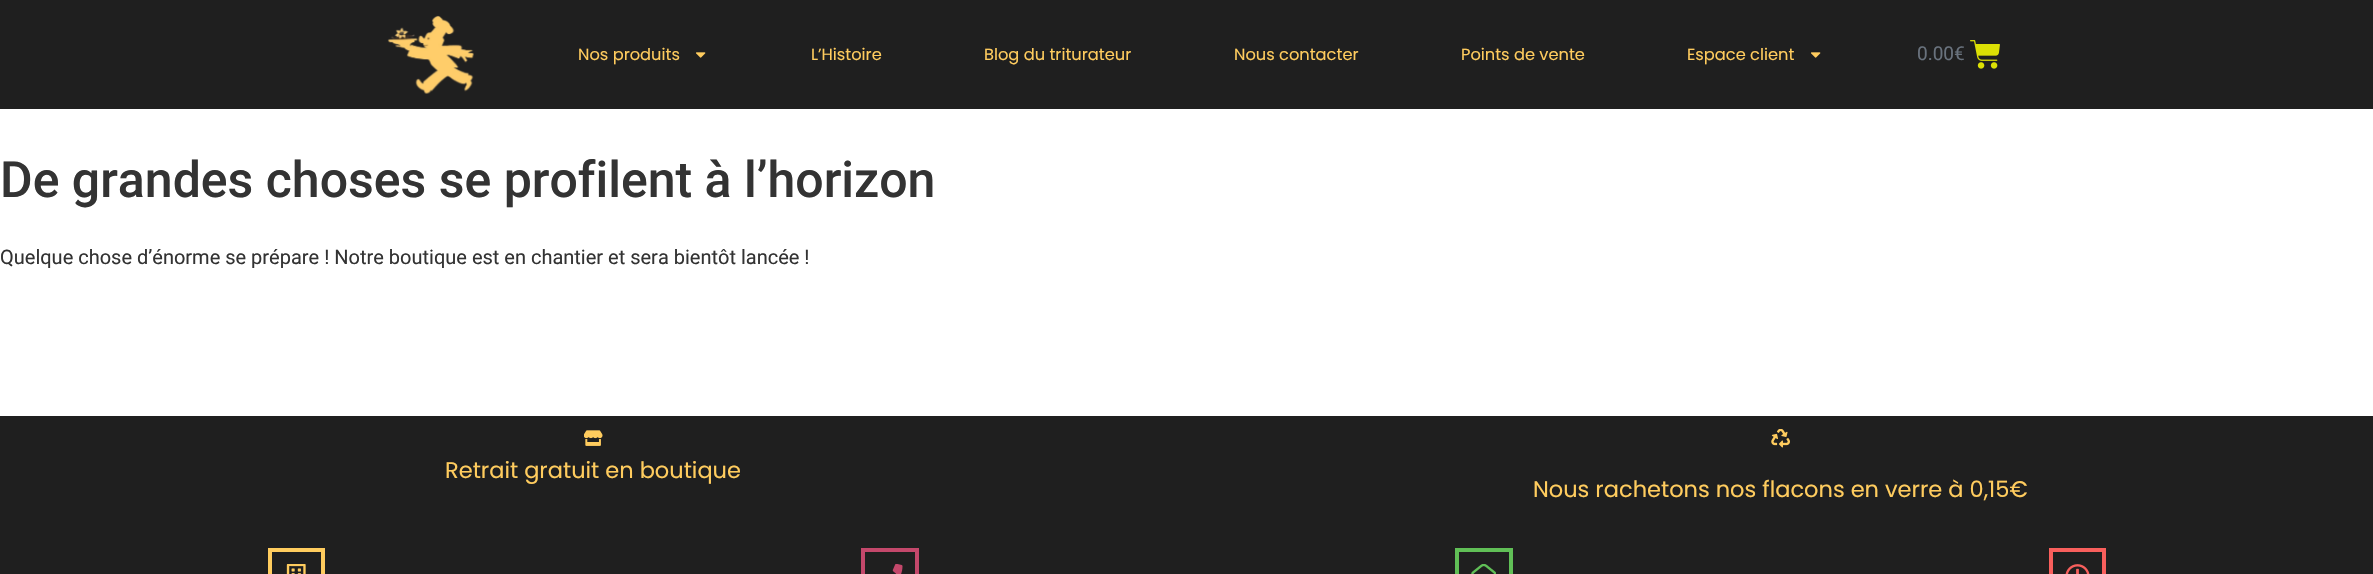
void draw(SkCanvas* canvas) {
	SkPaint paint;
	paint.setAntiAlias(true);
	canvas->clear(0xffffffff);
	paint.setColor(0xff1f1f1f);
	canvas->drawRect(SkRect::MakeXYWH(0, 0, 2373, 109), paint);
	canvas->drawImageRect(SkImages::DeferredFromEncodedData(SkData::MakeFromFileName("img1.png")), SkRect::MakeXYWH(387, 15, 87, 79), SkSamplingOptions());
	SkFont f1(fontMgr->matchFamilyStyle("Poppins", SkFontStyle::Normal()), 16.25);
	f1.setSubpixel(true);
	paint.setColor(0xffffcc5e);
	canvas->drawString("Nos produits", 578, 60, f1, paint);
	canvas->drawImageRect(SkImages::DeferredFromEncodedData(SkData::MakeFromFileName("img2.png")), SkRect::MakeXYWH(696, 52, 10, 6), SkSamplingOptions());
	canvas->drawString("L’Histoire", 811, 60, f1, paint);
	canvas->drawString("Blog du triturateur", 984, 60, f1, paint);
	canvas->drawString("Nous contacter", 1234, 60, f1, paint);
	canvas->drawString("Points de vente", 1461, 60, f1, paint);
	canvas->drawString("Espace client", 1687, 60, f1, paint);
	canvas->drawImageRect(SkImages::DeferredFromEncodedData(SkData::MakeFromFileName("img2.png")), SkRect::MakeXYWH(1811, 52, 10, 6), SkSamplingOptions());
	SkFont f2(fontMgr->matchFamilyStyle("Roboto", SkFontStyle::Normal()), 19);
	f2.setSubpixel(true);
	paint.setColor(0xff69727d);
	canvas->drawString("0.00€", 1917, 60, f2, paint);
	canvas->drawImageRect(SkImages::DeferredFromEncodedData(SkData::MakeFromFileName("img3.png")), SkRect::MakeXYWH(1970, 40, 30, 29), SkSamplingOptions());
	SkFont f3(fontMgr->matchFamilyStyle("Roboto", SkFontStyle(500, SkFontStyle::kNormal_Width, SkFontStyle::kUpright_Slant)), 50);
	f3.setSubpixel(true);
	paint.setColor(0xff333333);
	canvas->drawString("De grandes choses se profilent à l’horizon", 0, 197, f3, paint);
	SkFont f4(fontMgr->matchFamilyStyle("Roboto", SkFontStyle::Normal()), 20);
	f4.setSubpixel(true);
	canvas->drawString("Quelque chose d’énorme se prépare ! Notre boutique est en chantier et sera bientôt lancée !", 0, 264, f4, paint);
	paint.setColor(0xff1f1f1f);
	canvas->drawRect(SkRect::MakeXYWH(0, 416, 2373, 158), paint);
	canvas->drawImageRect(SkImages::DeferredFromEncodedData(SkData::MakeFromFileName("img4.png")), SkRect::MakeXYWH(584, 430, 19, 16), SkSamplingOptions());
	SkFont f5(fontMgr->matchFamilyStyle("Poppins", SkFontStyle::Normal()), 22.5);
	f5.setSubpixel(true);
	paint.setColor(0xffffcc5e);
	canvas->drawString("Retrait gratuit en boutique", 445, 478, f5, paint);
	canvas->drawImageRect(SkImages::DeferredFromEncodedData(SkData::MakeFromFileName("img5.png")), SkRect::MakeXYWH(1771, 429, 19, 19), SkSamplingOptions());
	canvas->drawString("Nous rachetons nos flacons en verre à 0,15€", 1533, 497, f5, paint);
	paint.setStroke(true);
	paint.setStrokeWidth(4);
	canvas->drawRect(SkRect::MakeXYWH(270, 550, 53, 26), paint);
	canvas->drawImageRect(SkImages::DeferredFromEncodedData(SkData::MakeFromFileName("img6.png")), SkRect::MakeXYWH(286, 564, 20, 10), SkSamplingOptions());
	paint.setColor(0xffc4486b);
	canvas->drawRect(SkRect::MakeXYWH(863, 550, 54, 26), paint);
	canvas->drawImageRect(SkImages::DeferredFromEncodedData(SkData::MakeFromFileName("img7.png")), SkRect::MakeXYWH(892, 564, 11, 10), SkSamplingOptions());
	paint.setColor(0xff60bf56);
	canvas->drawRect(SkRect::MakeXYWH(1457, 550, 54, 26), paint);
	canvas->drawImageRect(SkImages::DeferredFromEncodedData(SkData::MakeFromFileName("img8.png")), SkRect::MakeXYWH(1471, 564, 25, 10), SkSamplingOptions());
	paint.setColor(0xfff95f5c);
	canvas->drawRect(SkRect::MakeXYWH(2051, 550, 53, 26), paint);
	canvas->drawImageRect(SkImages::DeferredFromEncodedData(SkData::MakeFromFileName("img9.png")), SkRect::MakeXYWH(2065, 564, 25, 10), SkSamplingOptions());
}
